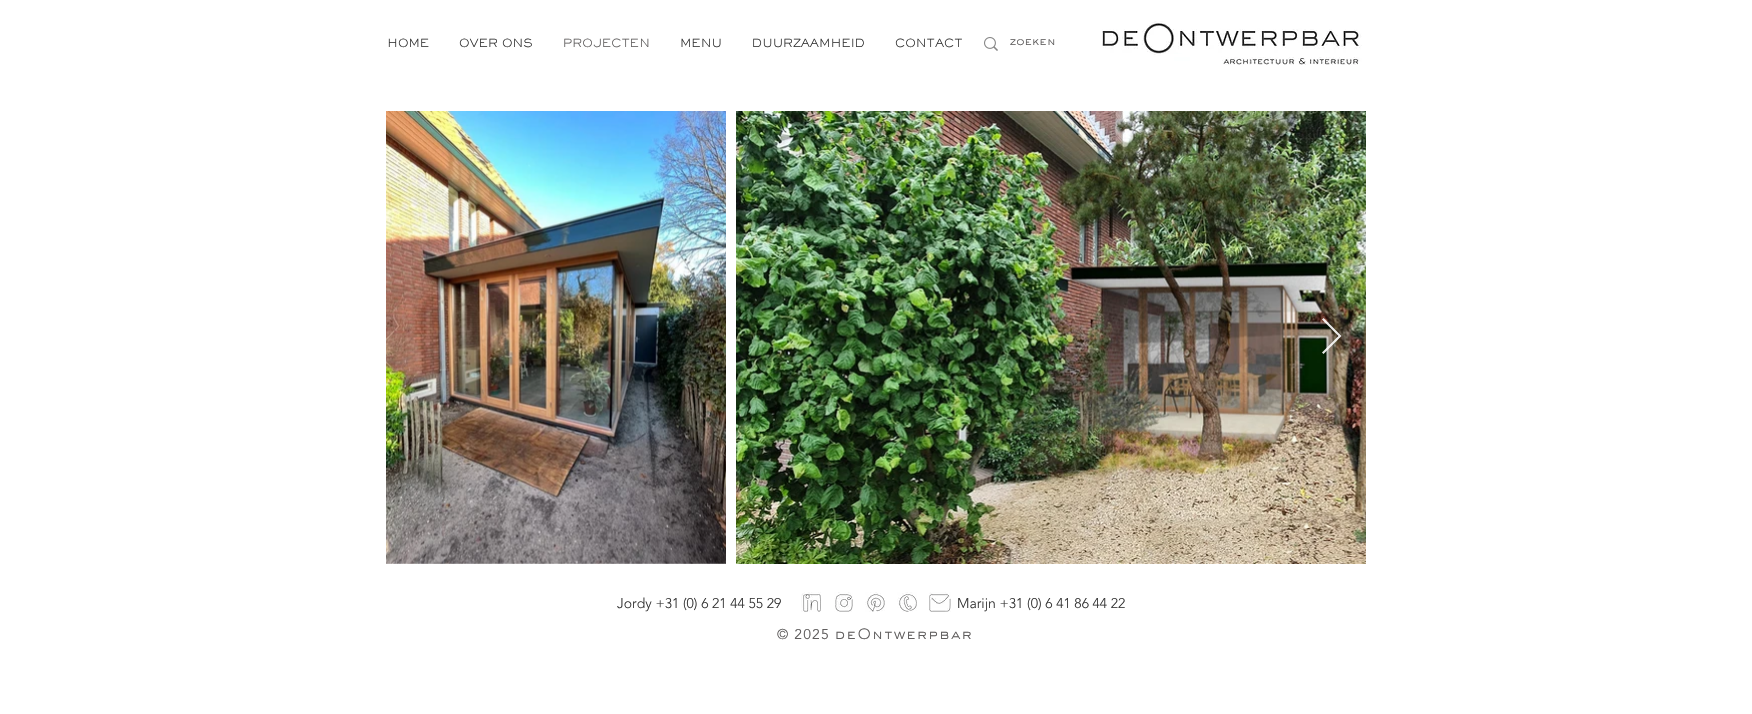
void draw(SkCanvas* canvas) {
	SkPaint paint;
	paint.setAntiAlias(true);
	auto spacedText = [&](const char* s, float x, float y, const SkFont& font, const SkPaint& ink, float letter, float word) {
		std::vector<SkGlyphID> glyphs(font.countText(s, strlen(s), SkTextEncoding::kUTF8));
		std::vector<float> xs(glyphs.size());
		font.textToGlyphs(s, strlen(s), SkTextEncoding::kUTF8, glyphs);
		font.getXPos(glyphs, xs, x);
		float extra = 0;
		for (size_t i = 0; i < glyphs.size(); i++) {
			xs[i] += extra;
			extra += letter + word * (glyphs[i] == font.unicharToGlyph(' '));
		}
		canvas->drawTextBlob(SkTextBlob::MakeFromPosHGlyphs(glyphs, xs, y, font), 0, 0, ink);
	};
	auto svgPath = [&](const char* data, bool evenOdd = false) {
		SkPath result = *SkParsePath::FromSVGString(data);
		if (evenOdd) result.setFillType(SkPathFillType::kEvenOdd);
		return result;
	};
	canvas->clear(0xffffffff);
	SkFont f1(fontMgr->matchFamilyStyle("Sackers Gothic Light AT", SkFontStyle(300, SkFontStyle::kNormal_Width, SkFontStyle::kUpright_Slant)), 11);
	f1.setSubpixel(true);
	paint.setColor(0xff363636);
	canvas->drawString("HOME", 387, 47, f1, paint);
	canvas->drawString("OVER ONS", 459, 47, f1, paint);
	paint.setColor(0xff605e5e);
	canvas->drawString("PROJECTEN", 563, 47, f1, paint);
	paint.setColor(0xff363636);
	canvas->drawString("MENU", 680, 47, f1, paint);
	canvas->drawString("DUURZAAMHEID", 752, 47, f1, paint);
	canvas->drawString("CONTACT", 895, 47, f1, paint);
	canvas->drawImageRect(SkImages::DeferredFromEncodedData(SkData::MakeFromFileName("img1.png")), SkRect::MakeXYWH(984, 37, 14, 14), SkSamplingOptions());
	paint.setColor(0xff605e5e);
	canvas->drawString("zoeken", 1010, 45, f1, paint);
	canvas->drawImageRect(SkImages::DeferredFromEncodedData(SkData::MakeFromFileName("img2.png")), SkRect::MakeXYWH(1102, 21, 260, 44), SkSamplingOptions());
	canvas->drawImageRect(SkImages::DeferredFromEncodedData(SkData::MakeFromFileName("img3.png")), SkRect::MakeXYWH(386, 111, 340, 453), SkSamplingOptions());
	canvas->drawImageRect(SkImages::DeferredFromEncodedData(SkData::MakeFromFileName("img4.png")), SkRect::MakeXYWH(736, 111, 630, 453), SkSamplingOptions());
	paint.setColor(0xe6ffffff);
	canvas->drawPath(svgPath("M1322 319.5L1323.5 318L1341.5 336L1323.5 354L1322 352.5L1338.5 336Z"), paint);
	SkFont f2(fontMgr->matchFamilyStyle("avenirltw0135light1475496", SkFontStyle(300, SkFontStyle::kNormal_Width, SkFontStyle::kUpright_Slant)), 14);
	f2.setSubpixel(true);
	paint.setColor(0xff363636);
	canvas->drawString("Jordy +31 (0) 6 21 44 55 29", 617, 608, f2, paint);
	canvas->drawImageRect(SkImages::DeferredFromEncodedData(SkData::MakeFromFileName("img5.png")), SkRect::MakeXYWH(801, 592, 20, 20), SkSamplingOptions());
	canvas->drawImageRect(SkImages::DeferredFromEncodedData(SkData::MakeFromFileName("img6.png")), SkRect::MakeXYWH(834, 592, 19, 20), SkSamplingOptions());
	canvas->drawImageRect(SkImages::DeferredFromEncodedData(SkData::MakeFromFileName("img7.png")), SkRect::MakeXYWH(865, 592, 20, 20), SkSamplingOptions());
	canvas->drawImageRect(SkImages::DeferredFromEncodedData(SkData::MakeFromFileName("img8.png")), SkRect::MakeXYWH(897, 592, 20, 20), SkSamplingOptions());
	canvas->drawImageRect(SkImages::DeferredFromEncodedData(SkData::MakeFromFileName("img9.png")), SkRect::MakeXYWH(929, 592, 22, 20), SkSamplingOptions());
	canvas->drawString("Marijn +31 (0) 6 41 86 44 22", 957, 608, f2, paint);
	SkFont f3(fontMgr->matchFamilyStyle("Avenir", SkFontStyle::Normal()), 14);
	f3.setSubpixel(true);
	paint.setColor(0xff605e5e);
	spacedText("© 2025", 777, 639, f3, paint, 1.1, 0);
	SkFont f4(fontMgr->matchFamilyStyle("Sackers Gothic Light AT", SkFontStyle(300, SkFontStyle::kNormal_Width, SkFontStyle::kUpright_Slant)), 14);
	f4.setSubpixel(true);
	spacedText("deOntwerpbar", 835, 639, f4, paint, 1.1, 0);
}
